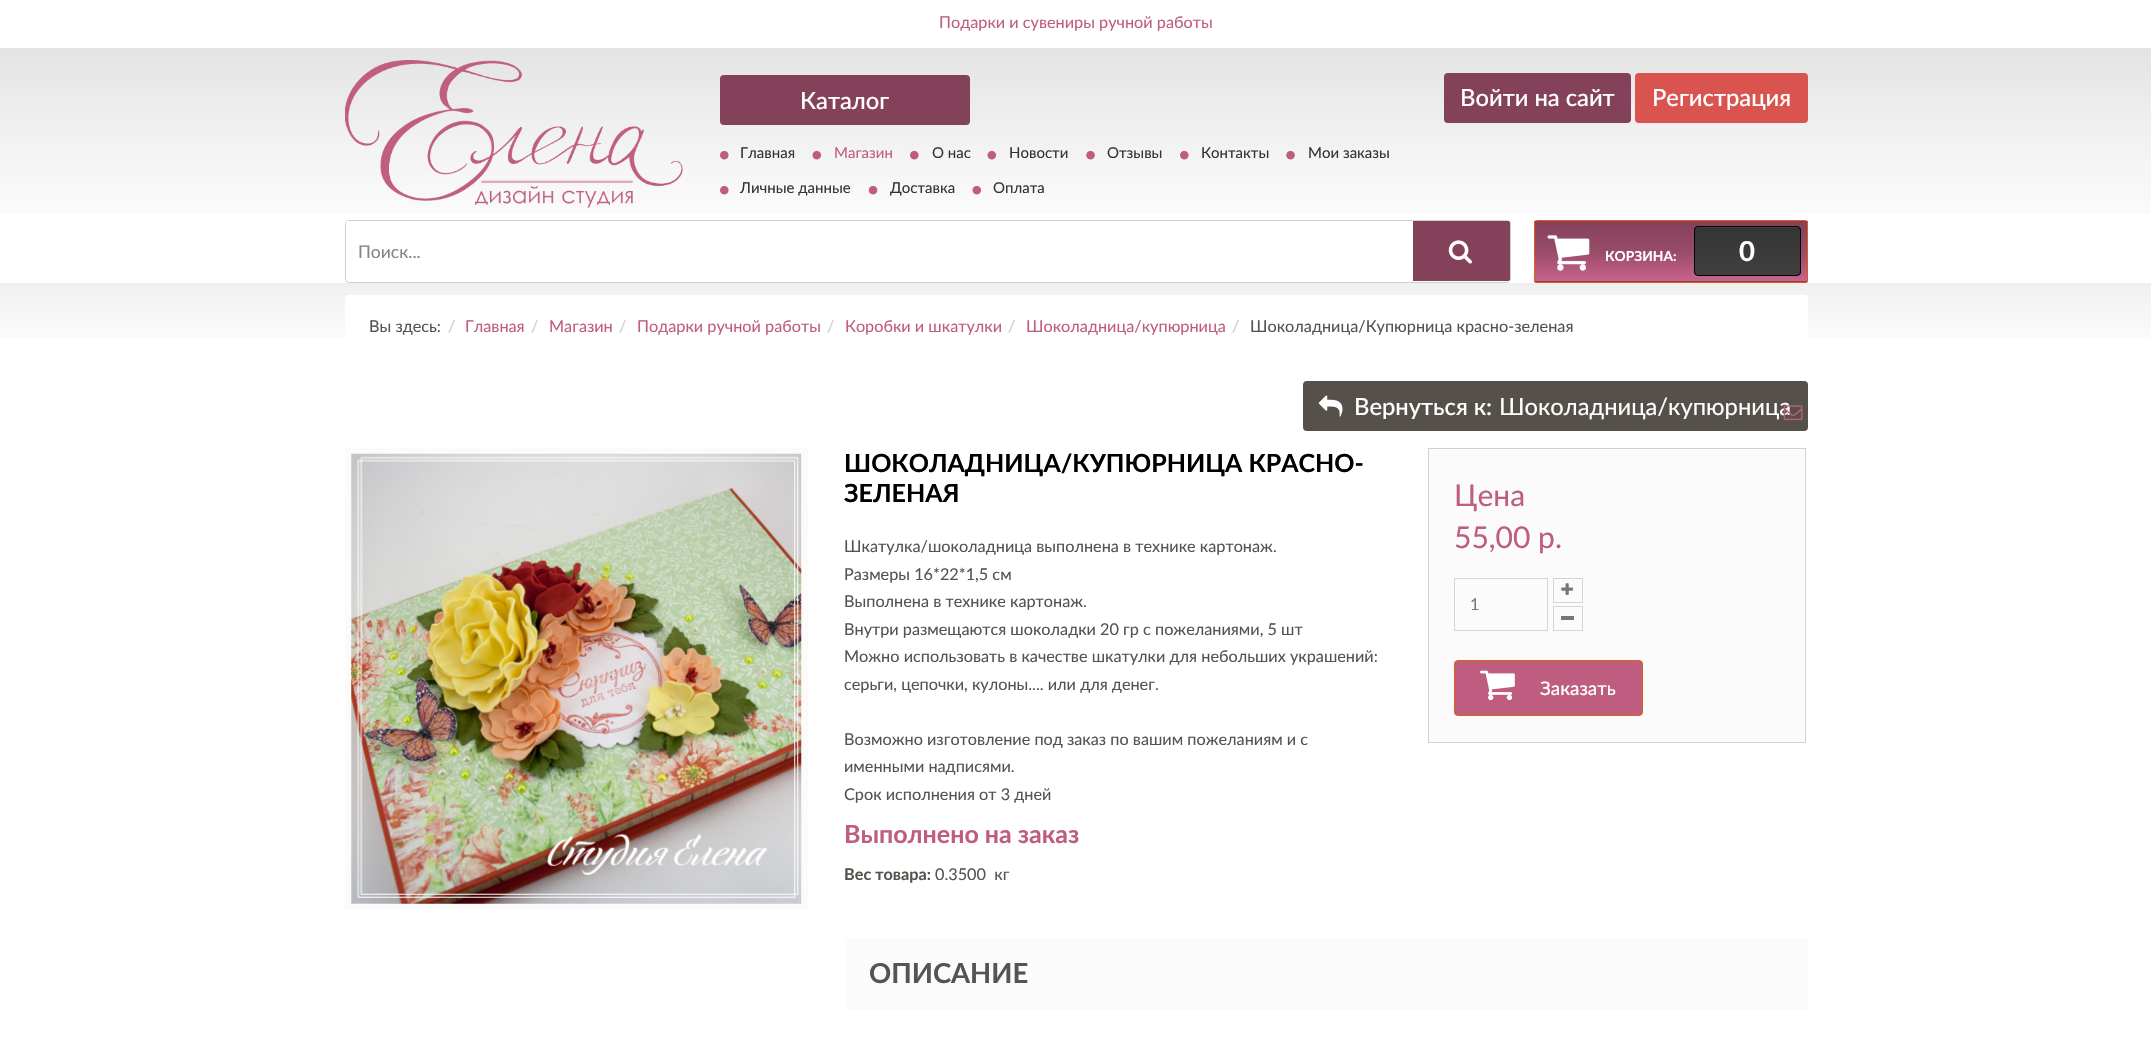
void draw(SkCanvas* canvas) {
	SkPaint paint;
	paint.setAntiAlias(true);
	auto svgPath = [&](const char* data, bool evenOdd = false) {
		SkPath result = *SkParsePath::FromSVGString(data);
		if (evenOdd) result.setFillType(SkPathFillType::kEvenOdd);
		return result;
	};
	canvas->clear(0xffffffff);
	SkFont f1(fontMgr->matchFamilyStyle("Lato", SkFontStyle::Normal()), 16.25);
	f1.setSubpixel(true);
	paint.setColor(0xffbf5d81);
	canvas->drawString("Подарки и сувениры ручной работы", 939, 28, f1, paint);
	canvas->drawImageRect(SkImages::DeferredFromEncodedData(SkData::MakeFromFileName("img1.png")), SkRect::MakeXYWH(0, 48, 2151, 166), SkSamplingOptions());
	canvas->drawImageRect(SkImages::DeferredFromEncodedData(SkData::MakeFromFileName("img2.png")), SkRect::MakeXYWH(345, 60, 338, 148), SkSamplingOptions());
	paint.setColor(0xff84415a);
	canvas->drawRoundRect(SkRect::MakeXYWH(720, 75, 250, 50), 4, 4, paint);
	SkFont f2(fontMgr->matchFamilyStyle("Lato", SkFontStyle(500, SkFontStyle::kNormal_Width, SkFontStyle::kUpright_Slant)), 23.75);
	f2.setSubpixel(true);
	paint.setColor(0xffffffff);
	canvas->drawString("Каталог", 800, 109, f2, paint);
	canvas->drawImageRect(SkImages::DeferredFromEncodedData(SkData::MakeFromFileName("img3.png")), SkRect::MakeXYWH(720, 150, 9, 10), SkSamplingOptions());
	SkFont f3(fontMgr->matchFamilyStyle("Lato", SkFontStyle::Normal()), 15);
	f3.setSubpixel(true);
	paint.setColor(0xff333333);
	canvas->drawString("Главная", 740, 158, f3, paint);
	canvas->drawImageRect(SkImages::DeferredFromEncodedData(SkData::MakeFromFileName("img4.png")), SkRect::MakeXYWH(812, 150, 10, 10), SkSamplingOptions());
	paint.setColor(0xffbf5d81);
	canvas->drawString("Магазин", 834, 158, f3, paint);
	canvas->drawImageRect(SkImages::DeferredFromEncodedData(SkData::MakeFromFileName("img3.png")), SkRect::MakeXYWH(910, 150, 9, 10), SkSamplingOptions());
	paint.setColor(0xff333333);
	canvas->drawString("О нас", 932, 158, f3, paint);
	canvas->drawImageRect(SkImages::DeferredFromEncodedData(SkData::MakeFromFileName("img4.png")), SkRect::MakeXYWH(987, 150, 10, 10), SkSamplingOptions());
	canvas->drawString("Новости", 1009, 158, f3, paint);
	canvas->drawImageRect(SkImages::DeferredFromEncodedData(SkData::MakeFromFileName("img5.png")), SkRect::MakeXYWH(1086, 150, 9, 10), SkSamplingOptions());
	canvas->drawString("Отзывы", 1107, 158, f3, paint);
	canvas->drawImageRect(SkImages::DeferredFromEncodedData(SkData::MakeFromFileName("img3.png")), SkRect::MakeXYWH(1180, 150, 9, 10), SkSamplingOptions());
	canvas->drawString("Контакты", 1201, 158, f3, paint);
	canvas->drawImageRect(SkImages::DeferredFromEncodedData(SkData::MakeFromFileName("img5.png")), SkRect::MakeXYWH(1286, 150, 9, 10), SkSamplingOptions());
	canvas->drawString("Мои заказы", 1308, 158, f3, paint);
	canvas->drawImageRect(SkImages::DeferredFromEncodedData(SkData::MakeFromFileName("img6.png")), SkRect::MakeXYWH(720, 185, 9, 10), SkSamplingOptions());
	canvas->drawString("Личные данные", 740, 193, f3, paint);
	canvas->drawImageRect(SkImages::DeferredFromEncodedData(SkData::MakeFromFileName("img7.png")), SkRect::MakeXYWH(868, 185, 10, 10), SkSamplingOptions());
	canvas->drawString("Доставка", 890, 193, f3, paint);
	canvas->drawImageRect(SkImages::DeferredFromEncodedData(SkData::MakeFromFileName("img8.png")), SkRect::MakeXYWH(972, 185, 10, 10), SkSamplingOptions());
	canvas->drawString("Оплата", 993, 193, f3, paint);
	paint.setColor(0xff84415a);
	canvas->drawRoundRect(SkRect::MakeXYWH(1444, 73, 187, 50), 4, 4, paint);
	paint.setColor(0xffffffff);
	canvas->drawString("Войти на сайт", 1460, 106, f2, paint);
	paint.setColor(0xffd9534f);
	canvas->drawRoundRect(SkRect::MakeXYWH(1635, 73, 173, 50), 4, 4, paint);
	paint.setColor(0xffffffff);
	canvas->drawString("Регистрация", 1652, 106, f2, paint);
	paint.setStroke(true);
	paint.setStrokeWidth(1);
	paint.setColor(0xffd0cfcf);
	canvas->drawRoundRect(SkRect::MakeXYWH(345.5, 220.5, 1165, 62), 3.5, 3.5, paint);
	paint.setStroke(false);
	paint.setColor(0xffffffff);
	canvas->drawPath(svgPath("M348.5 221H1393V281H348.5C347 281 346 280 346 278.5V223.5C346 222 347 221 348.5 221Z"), paint);
	SkFont f4(fontMgr->matchFamilyStyle("Lato", SkFontStyle::Normal()), 17.5);
	f4.setSubpixel(true);
	paint.setColor(0xff888682);
	canvas->drawString("Поиск...", 358, 258, f4, paint);
	paint.setColor(0xff84415a);
	canvas->drawPath(svgPath("M1413 221H1507.5C1509 221 1510 222 1510 223.5V278.5C1510 280 1509 281 1507.5 281H1413Z"), paint);
	canvas->drawPath(svgPath("M1413 221V281H1508C1509 281 1510 280 1510 278V224C1510 222 1509 221 1508 221ZM1414 222V280H1509V222Z", true), paint);
	canvas->drawImageRect(SkImages::DeferredFromEncodedData(SkData::MakeFromFileName("img9.png")), SkRect::MakeXYWH(1448, 240, 24, 24), SkSamplingOptions());
	{
		const SkColor colors[] = {0xff84415a, 0xff974b67, 0xffc9638a};
		const float stops[] = {0, 0.49, 1};
		const SkPoint ends[] = {{1671, 221}, {1671, 281}};
		paint.setShader(SkGradientShader::MakeLinear(ends, colors, stops, 3, SkTileMode::kClamp));
		paint.setAlpha(255);
	}
	canvas->drawRect(SkRect::MakeXYWH(1534, 221, 274, 60), paint);
	canvas->save();
	canvas->clipPath(svgPath("M1536.5 220H1805.5C1807 220 1808 221 1808 222.5V280.5C1808 282 1807 283 1805.5 283H1536.5C1535 283 1534 282 1534 280.5V222.5C1534 221 1535 220 1536.5 220Z"), true);
	{
		const SkColor colors[] = {0xff84415a, 0xff974b67, 0xffc9638a};
		const float stops[] = {0, 0.49, 1};
		const SkPoint ends[] = {{1671, 281}, {1671, 341}};
		paint.setShader(SkGradientShader::MakeLinear(ends, colors, stops, 3, SkTileMode::kClamp));
		paint.setAlpha(255);
	}
	canvas->drawRect(SkRect::MakeXYWH(1534, 281, 274, 2), paint);
	canvas->restore();
	paint.setStroke(true);
	paint.setShader(nullptr);
	paint.setColor(0xffe35916);
	canvas->drawRoundRect(SkRect::MakeXYWH(1534.5, 220.5, 273, 62), 2, 2, paint);
	canvas->drawImageRect(SkImages::DeferredFromEncodedData(SkData::MakeFromFileName("img10.png")), SkRect::MakeXYWH(1547, 235, 43, 36), SkSamplingOptions());
	SkFont f5(fontMgr->matchFamilyStyle("Lato", SkFontStyle::Bold()), 13.75);
	f5.setSubpixel(true);
	paint.setStroke(false);
	paint.setColor(0xffffffff);
	canvas->drawString("КОРЗИНА:", 1605, 261, f5, paint);
	canvas->save();
	canvas->clipPath(svgPath("M1698 226H1797C1799 226 1801 228 1801 230V272C1801 274 1799 276 1797 276H1698C1696 276 1694 274 1694 272V230C1694 228 1696 226 1698 226Z"), true);
	{
		const SkColor colors[] = {0xff343434, 0xff3a3a3a, 0xff414040};
		const float stops[] = {0, 0.49, 1};
		const SkPoint ends[] = {{1748, 180}, {1748, 228}};
		paint.setShader(SkGradientShader::MakeLinear(ends, colors, stops, 3, SkTileMode::kClamp));
		paint.setAlpha(255);
	}
	canvas->drawRect(SkRect::MakeXYWH(1694, 226, 107, 2), paint);
	{
		const SkColor colors[] = {0xff343434, 0xff3a3a3a, 0xff414040};
		const float stops[] = {0, 0.49, 1};
		const SkPoint ends[] = {{1748, 228}, {1748, 275}};
		paint.setShader(SkGradientShader::MakeLinear(ends, colors, stops, 3, SkTileMode::kClamp));
		paint.setAlpha(255);
	}
	canvas->drawRect(SkRect::MakeXYWH(1694, 228, 107, 47), paint);
	canvas->restore();
	paint.setStroke(true);
	paint.setShader(nullptr);
	paint.setColor(0xff000000);
	canvas->drawRoundRect(SkRect::MakeXYWH(1694.5, 226.5, 106, 49), 3.5, 3.5, paint);
	SkFont f6(fontMgr->matchFamilyStyle("Lato", SkFontStyle::Bold()), 27.5);
	f6.setSubpixel(true);
	paint.setStroke(false);
	paint.setColor(0xffffffff);
	canvas->drawString("0", 1739, 261, f6, paint);
	canvas->drawImageRect(SkImages::DeferredFromEncodedData(SkData::MakeFromFileName("img11.png")), SkRect::MakeXYWH(0, 283, 2151, 54), SkSamplingOptions());
	canvas->drawRoundRect(SkRect::MakeXYWH(345, 295, 1463, 63), 4, 4, paint);
	paint.setColor(0xff56534e);
	canvas->drawString("Вы здесь:", 369, 332, f1, paint);
	paint.setColor(0xffcccccc);
	canvas->drawString("/", 448, 332, f1, paint);
	paint.setColor(0xffbf5d81);
	canvas->drawString("Главная", 465, 332, f1, paint);
	paint.setColor(0xffcccccc);
	canvas->drawString("/", 531, 332, f1, paint);
	paint.setColor(0xffbf5d81);
	canvas->drawString("Магазин", 549, 332, f1, paint);
	paint.setColor(0xffcccccc);
	canvas->drawString("/", 619, 332, f1, paint);
	paint.setColor(0xffbf5d81);
	canvas->drawString("Подарки ручной работы", 637, 332, f1, paint);
	paint.setColor(0xffcccccc);
	canvas->drawString("/", 827, 332, f1, paint);
	paint.setColor(0xffbf5d81);
	canvas->drawString("Коробки и шкатулки", 845, 332, f1, paint);
	paint.setColor(0xffcccccc);
	canvas->drawString("/", 1008, 332, f1, paint);
	paint.setColor(0xffbf5d81);
	canvas->drawString("Шоколадница/купюрница", 1026, 332, f1, paint);
	paint.setColor(0xffcccccc);
	canvas->drawString("/", 1232, 332, f1, paint);
	paint.setColor(0xff56534e);
	canvas->drawString("Шоколадница/Купюрница красно-зеленая", 1250, 332, f1, paint);
	paint.setColor(0xff55504a);
	canvas->drawRoundRect(SkRect::MakeXYWH(1303, 381, 505, 50), 4, 4, paint);
	canvas->drawImageRect(SkImages::DeferredFromEncodedData(SkData::MakeFromFileName("img12.png")), SkRect::MakeXYWH(1318, 395, 25, 22), SkSamplingOptions());
	paint.setColor(0xffffffff);
	canvas->drawString("Вернуться к:", 1354, 415, f2, paint);
	SkFont f7(fontMgr->matchFamilyStyle("Lato", SkFontStyle::Normal()), 23.75);
	f7.setSubpixel(true);
	canvas->drawString("Шоколадница/купюрница", 1499, 415, f7, paint);
	canvas->drawImageRect(SkImages::DeferredFromEncodedData(SkData::MakeFromFileName("img13.png")), SkRect::MakeXYWH(1783, 405, 20, 16), SkSamplingOptions());
	paint.setColor(0xfffbfbfb);
	canvas->drawRect(SkRect::MakeXYWH(345, 448, 463, 462), paint);
	paint.setColor(0xffffffff);
	canvas->drawRect(SkRect::MakeXYWH(351, 454, 450, 450), paint);
	canvas->drawImageRect(SkImages::DeferredFromEncodedData(SkData::MakeFromFileName("img14.png")), SkRect::MakeXYWH(351, 453, 451, 451), SkSamplingOptions());
	SkFont f8(fontMgr->matchFamilyStyle("Lato", SkFontStyle::Bold()), 25);
	f8.setSubpixel(true);
	paint.setColor(0xff000000);
	canvas->drawString("ШОКОЛАДНИЦА/КУПЮРНИЦА КРАСНО-", 844, 472, f8, paint);
	canvas->drawString("ЗЕЛЕНАЯ", 844, 502, f8, paint);
	paint.setColor(0xff56534e);
	canvas->drawString("Шкатулка/шоколадница выполнена в технике картонаж.", 844, 552, f1, paint);
	canvas->drawString("Размеры 16*22*1,5 см", 844, 580, f1, paint);
	canvas->drawString("Выполнена в технике картонаж.", 844, 607, f1, paint);
	canvas->drawString("Внутри размещаются шоколадки 20 гр с пожеланиями, 5 шт", 844, 635, f1, paint);
	canvas->drawString("Можно использовать в качестве шкатулки для небольших украшений:", 844, 662, f1, paint);
	canvas->drawString("серьги, цепочки, кулоны.... или для денег.", 844, 690, f1, paint);
	canvas->drawString("Возможно изготовление под заказ по вашим пожеланиям и с", 844, 745, f1, paint);
	canvas->drawString("именными надписями.", 844, 772, f1, paint);
	canvas->drawString("Срок исполнения от 3 дней", 844, 800, f1, paint);
	paint.setColor(0xffbf5d81);
	canvas->drawString("Выполнено на заказ", 844, 843, f8, paint);
	SkFont f9(fontMgr->matchFamilyStyle("Lato", SkFontStyle::Bold()), 16.25);
	f9.setSubpixel(true);
	paint.setColor(0xff56534e);
	canvas->drawString("Вес товара:", 844, 880, f9, paint);
	canvas->drawString("0.3500  кг", 935, 880, f1, paint);
	paint.setColor(0xfffbfbfb);
	canvas->drawRect(SkRect::MakeXYWH(1428.5, 448.5, 377, 294), paint);
	paint.setStroke(true);
	paint.setColor(0xffd2d0d0);
	canvas->drawRect(SkRect::MakeXYWH(1428.5, 448.5, 377, 294), paint);
	SkFont f10(fontMgr->matchFamilyStyle("Lato", SkFontStyle::Normal()), 30);
	f10.setSubpixel(true);
	paint.setStroke(false);
	paint.setColor(0xffbf5d81);
	canvas->drawString("Цена", 1454, 506, f10, paint);
	canvas->drawString("55,00 p.", 1454, 548, f10, paint);
	paint.setStroke(true);
	paint.setColor(0xffd6d4d4);
	canvas->drawRect(SkRect::MakeXYWH(1454.5, 578.5, 93, 52), paint);
	paint.setStroke(false);
	paint.setColor(0xff777777);
	canvas->drawString("1", 1470, 610, f1, paint);
	paint.setStroke(true);
	paint.setColor(0xffd6d4d4);
	canvas->drawRect(SkRect::MakeXYWH(1553.5, 578.5, 29, 24), paint);
	canvas->drawImageRect(SkImages::DeferredFromEncodedData(SkData::MakeFromFileName("img15.png")), SkRect::MakeXYWH(1561, 583, 13, 12), SkSamplingOptions());
	canvas->drawRect(SkRect::MakeXYWH(1553.5, 606.5, 29, 24), paint);
	paint.setStroke(false);
	paint.setColor(0xff777777);
	canvas->drawRect(SkRect::MakeXYWH(1561, 616, 13, 4), paint);
	paint.setColor(0xffbf5d81);
	canvas->drawRoundRect(SkRect::MakeXYWH(1454.5, 660.5, 188, 55), 3.5, 3.5, paint);
	paint.setStroke(true);
	paint.setColor(0xffe35916);
	canvas->drawRoundRect(SkRect::MakeXYWH(1454.5, 660.5, 188, 55), 3.5, 3.5, paint);
	canvas->drawImageRect(SkImages::DeferredFromEncodedData(SkData::MakeFromFileName("img16.png")), SkRect::MakeXYWH(1480, 670, 35, 31), SkSamplingOptions());
	SkFont f11(fontMgr->matchFamilyStyle("Lato", SkFontStyle(500, SkFontStyle::kNormal_Width, SkFontStyle::kUpright_Slant)), 18.75);
	f11.setSubpixel(true);
	paint.setStroke(false);
	paint.setColor(0xffffffff);
	canvas->drawString("Заказать", 1540, 695, f11, paint);
	paint.setColor(0xfffbfbfb);
	canvas->drawRoundRect(SkRect::MakeXYWH(845, 938, 963, 72), 4, 4, paint);
	paint.setColor(0xff555454);
	canvas->drawString("ОПИСАНИЕ", 869, 983, f6, paint);
}
